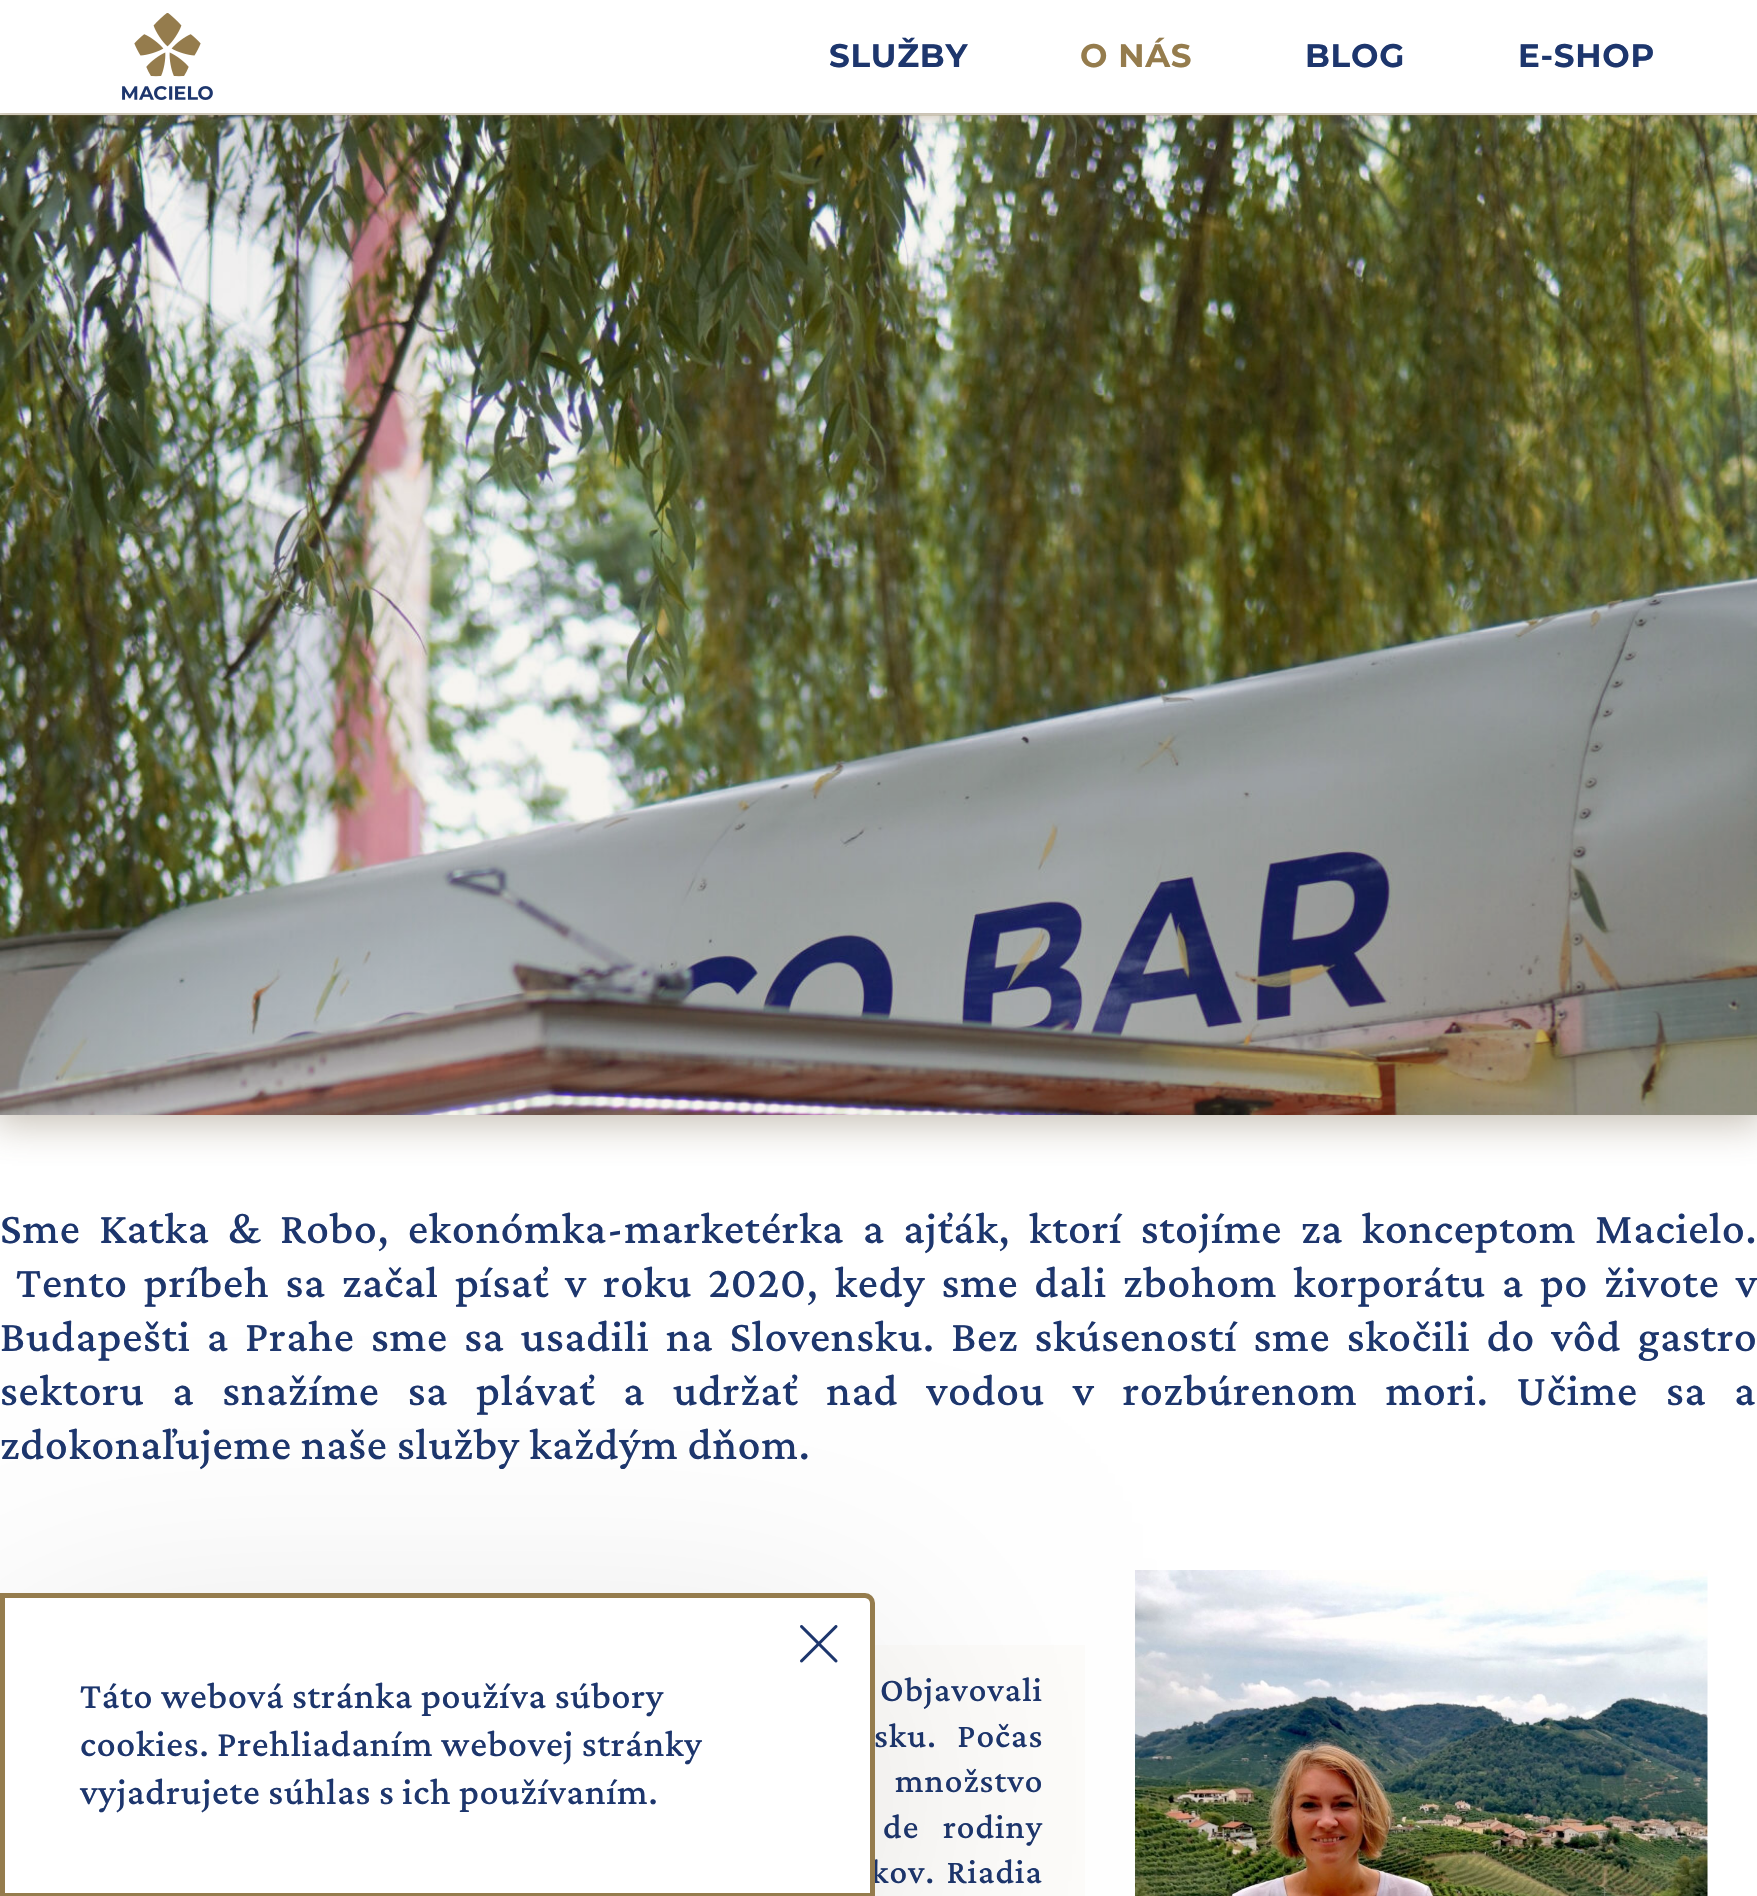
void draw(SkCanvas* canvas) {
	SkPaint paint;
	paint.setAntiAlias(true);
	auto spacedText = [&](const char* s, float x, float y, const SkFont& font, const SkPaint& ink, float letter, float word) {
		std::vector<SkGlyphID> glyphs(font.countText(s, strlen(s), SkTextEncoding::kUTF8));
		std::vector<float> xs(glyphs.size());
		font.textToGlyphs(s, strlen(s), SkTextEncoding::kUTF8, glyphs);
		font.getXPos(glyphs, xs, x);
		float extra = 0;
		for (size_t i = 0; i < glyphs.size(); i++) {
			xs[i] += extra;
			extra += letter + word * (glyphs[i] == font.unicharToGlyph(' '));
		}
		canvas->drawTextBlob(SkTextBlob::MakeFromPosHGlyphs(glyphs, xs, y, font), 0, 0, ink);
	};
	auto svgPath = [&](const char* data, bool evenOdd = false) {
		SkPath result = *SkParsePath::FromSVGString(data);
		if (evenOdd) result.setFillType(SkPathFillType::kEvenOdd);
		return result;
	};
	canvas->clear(0xffffffff);
	paint.setColor(0x696e5d3e);
	paint.setMaskFilter(SkMaskFilter::MakeBlur(kNormal_SkBlurStyle, 19));
	canvas->drawRect(SkRect::MakeXYWH(-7, 108, 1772, 1015), paint);
	paint.setMaskFilter(nullptr);
	paint.setColor(0xffffffff);
	canvas->drawRect(SkRect::MakeXYWH(0, 113, 1757, 2), paint);
	canvas->drawImageRect(SkImages::DeferredFromEncodedData(SkData::MakeFromFileName("img2.png")), SkRect::MakeXYWH(0, 115, 1757, 1000), SkSamplingOptions());
	paint.setColor(0x33957c4d);
	canvas->drawRect(SkRect::MakeXYWH(0, 113, 1757, 3), paint);
	paint.setColor(0x696e5d3e);
	paint.setMaskFilter(SkMaskFilter::MakeBlur(kNormal_SkBlurStyle, 6));
	canvas->drawRect(SkRect::MakeXYWH(-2, -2, 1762, 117), paint);
	paint.setMaskFilter(nullptr);
	paint.setColor(0xffffffff);
	canvas->drawRect(SkRect::MakeXYWH(0, 0, 1757, 113), paint);
	canvas->drawImageRect(SkImages::DeferredFromEncodedData(SkData::MakeFromFileName("img1.png")), SkRect::MakeXYWH(122, 13, 91, 87), SkSamplingOptions());
	SkFont f1(fontMgr->matchFamilyStyle("Montserrat", SkFontStyle::Bold()), 32.5);
	f1.setSubpixel(true);
	paint.setColor(0xff1d366d);
	spacedText("SLUŽBY", 829, 67, f1, paint, 0.75, 0);
	paint.setColor(0xff957c4d);
	spacedText("O NÁS", 1080, 67, f1, paint, 0.75, 0);
	paint.setColor(0xff1d366d);
	spacedText("BLOG", 1305, 67, f1, paint, 0.75, 0);
	spacedText("E-SHOP", 1518, 67, f1, paint, 0.75, 0);
	SkFont f2(fontMgr->matchFamilyStyle("Crimson Pro", SkFontStyle(500, SkFontStyle::kNormal_Width, SkFontStyle::kUpright_Slant)), 45);
	f2.setSubpixel(true);
	spacedText("Sme Katka & Robo, ekonómka-marketérka a ajťák, ktorí stojíme za konceptom Macielo.", 0, 1243, f2, paint, 0.75, 9.5);
	spacedText("Tento príbeh sa začal písať v roku 2020, kedy sme dali zbohom korporátu a po živote v", 16, 1297, f2, paint, 0.75, 6.9);
	spacedText("Budapešti a Prahe sme sa usadili na Slovensku. Bez skúseností sme skočili do vôd gastro", 0, 1351, f2, paint, 0.75, 7.1);
	spacedText("sektoru a snažíme sa plávať a udržať nad vodou v rozbúrenom mori. Učime sa a", 0, 1405, f2, paint, 0.75, 18.75);
	spacedText("zdokonaľujeme naše služby každým dňom.", 0, 1459, f2, paint, 0.75, 0);
	paint.setColor(0xfffdfcfa);
	canvas->drawRect(SkRect::MakeXYWH(875, 1645, 210, 251), paint);
	SkFont f3(fontMgr->matchFamilyStyle("Crimson Pro", SkFontStyle(500, SkFontStyle::kNormal_Width, SkFontStyle::kUpright_Slant)), 35);
	f3.setSubpixel(true);
	paint.setColor(0xff1d366d);
	spacedText("Objavovali", 880, 1701, f3, paint, 1, 2);
	spacedText("sku. Počas", 874, 1747, f3, paint, 1, 13);
	spacedText("množstvo", 895, 1792, f3, paint, 1, 14);
	spacedText("de rodiny", 883, 1838, f3, paint, 1, 16);
	spacedText("kov. Riadia", 871, 1883, f3, paint, 1, 4);
	canvas->drawImageRect(SkImages::DeferredFromEncodedData(SkData::MakeFromFileName("img3.png")), SkRect::MakeXYWH(1135, 1570, 573, 326), SkSamplingOptions());
	paint.setColor(0x1a000000);
	paint.setMaskFilter(SkMaskFilter::MakeBlur(kNormal_SkBlurStyle, 187.5));
	canvas->drawRoundRect(SkRect::MakeXYWH(0, 1643, 875, 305), 10, 10, paint);
	paint.setMaskFilter(nullptr);
	paint.setColor(0xffffffff);
	canvas->drawPath(svgPath("M2.5 1595.5H865C869 1595.5 872.5 1599 872.5 1603V1895.5H2.5Z"), paint);
	paint.setStroke(true);
	paint.setStrokeWidth(5);
	paint.setColor(0xff957c4d);
	canvas->drawPath(svgPath("M2.5 1595.5H865C869 1595.5 872.5 1599 872.5 1603V1895.5H2.5Z"), paint);
	canvas->drawImageRect(SkImages::DeferredFromEncodedData(SkData::MakeFromFileName("img4.png")), SkRect::MakeXYWH(800, 1625, 38, 38), SkSamplingOptions());
	SkFont f4(fontMgr->matchFamilyStyle("Crimson Pro", SkFontStyle(500, SkFontStyle::kNormal_Width, SkFontStyle::kUpright_Slant)), 37.5);
	f4.setSubpixel(true);
	paint.setStroke(false);
	paint.setColor(0xff1d366d);
	spacedText("Táto webová stránka používa súbory", 80, 1708, f4, paint, 0.75, 0);
	spacedText("cookies. Prehliadaním webovej stránky", 80, 1756, f4, paint, 0.75, 0);
	spacedText("vyjadrujete súhlas s ich používaním.", 80, 1804, f4, paint, 0.75, 0);
}
